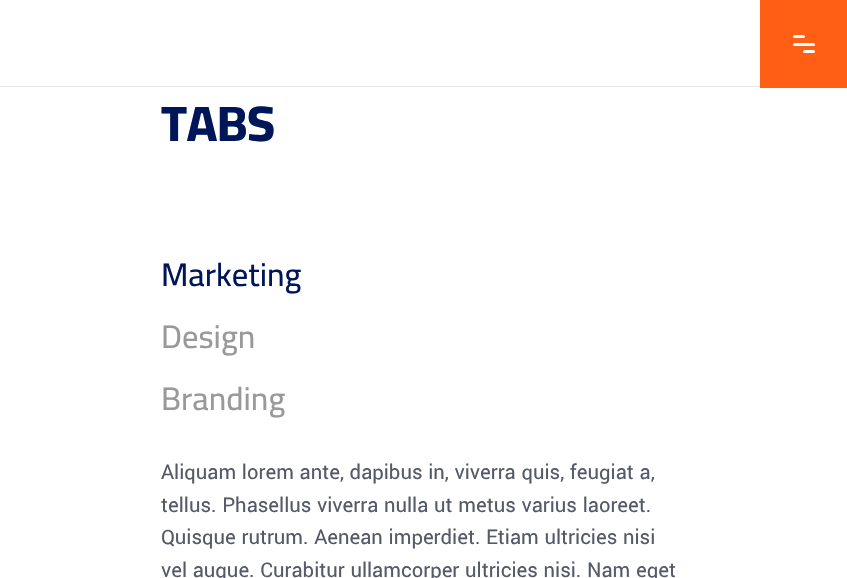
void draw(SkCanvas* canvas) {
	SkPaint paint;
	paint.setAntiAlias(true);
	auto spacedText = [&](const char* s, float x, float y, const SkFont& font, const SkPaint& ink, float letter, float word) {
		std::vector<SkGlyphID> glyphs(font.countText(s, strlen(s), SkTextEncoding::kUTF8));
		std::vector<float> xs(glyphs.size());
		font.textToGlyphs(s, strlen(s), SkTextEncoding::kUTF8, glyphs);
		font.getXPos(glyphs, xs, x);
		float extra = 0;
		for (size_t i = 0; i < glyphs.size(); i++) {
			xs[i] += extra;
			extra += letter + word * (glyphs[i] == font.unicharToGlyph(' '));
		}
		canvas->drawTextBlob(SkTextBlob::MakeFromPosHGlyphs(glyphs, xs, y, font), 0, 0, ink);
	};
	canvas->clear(0xffffffff);
	paint.setColor(0xffe8e8e9);
	canvas->drawRect(SkRect::MakeXYWH(0, 86, 760, 1), paint);
	paint.setColor(0xffff5e14);
	canvas->drawRect(SkRect::MakeXYWH(760, 0, 87, 88), paint);
	paint.setColor(0xffffffff);
	canvas->drawRoundRect(SkRect::MakeXYWH(793, 35, 12, 3), 1.5, 1.5, paint);
	canvas->drawRoundRect(SkRect::MakeXYWH(793, 43, 22, 3), 1.5, 1.5, paint);
	canvas->drawRoundRect(SkRect::MakeXYWH(803, 50, 12, 3), 1.5, 1.5, paint);
	SkFont f1(fontMgr->matchFamilyStyle("Cairo", SkFontStyle(800, SkFontStyle::kNormal_Width, SkFontStyle::kUpright_Slant)), 50);
	f1.setSubpixel(true);
	paint.setColor(0xff001659);
	spacedText("TABS", 161, 141, f1, paint, -0.5, 0);
	SkFont f2(fontMgr->matchFamilyStyle("Cairo", SkFontStyle(500, SkFontStyle::kNormal_Width, SkFontStyle::kUpright_Slant)), 32.5);
	f2.setSubpixel(true);
	canvas->drawString("Marketing", 161, 286, f2, paint);
	paint.setColor(0xff999999);
	canvas->drawString("Design", 161, 348, f2, paint);
	canvas->drawString("Branding", 161, 410, f2, paint);
	SkFont f3(fontMgr->matchFamilyStyle("Yantramanav", SkFontStyle::Normal()), 22.5);
	f3.setSubpixel(true);
	paint.setColor(0xff565969);
	canvas->drawString("Aliquam lorem ante, dapibus in, viverra quis, feugiat a,", 161, 479, f3, paint);
	canvas->drawString("tellus. Phasellus viverra nulla ut metus varius laoreet.", 161, 512, f3, paint);
	canvas->drawString("Quisque rutrum. Aenean imperdiet. Etiam ultricies nisi", 161, 544, f3, paint);
	canvas->drawString("vel augue. Curabitur ullamcorper ultricies nisi. Nam eget", 161, 577, f3, paint);
}
